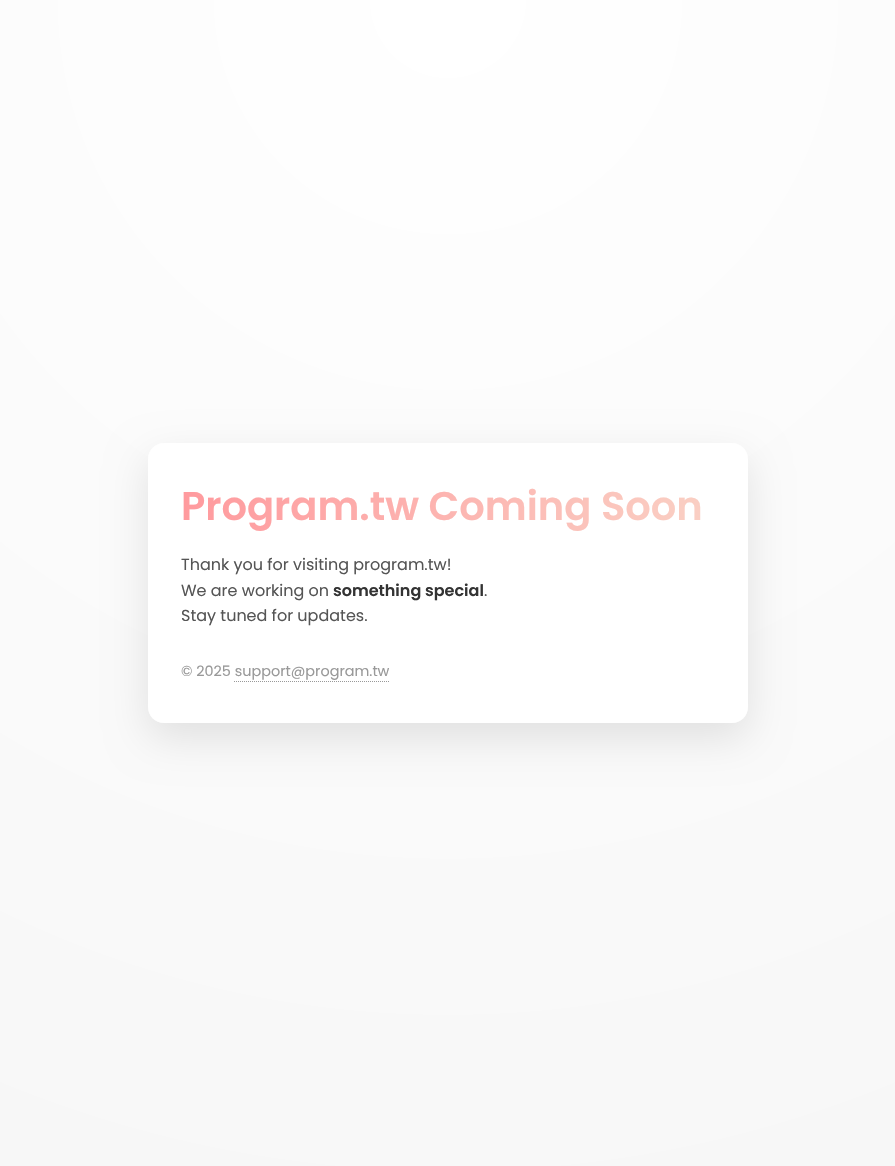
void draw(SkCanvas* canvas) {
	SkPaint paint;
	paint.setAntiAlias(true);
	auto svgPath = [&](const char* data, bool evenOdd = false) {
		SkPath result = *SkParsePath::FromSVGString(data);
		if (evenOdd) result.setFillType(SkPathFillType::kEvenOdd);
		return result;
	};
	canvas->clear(0xffffffff);
	{
		const SkColor colors[] = {0xffffffff, 0xfff7f7f7};
		const float stops[] = {0, 1};
		paint.setShader(SkGradientShader::MakeRadial({448, 0}, 1249, colors, stops, 2, SkTileMode::kClamp));
		paint.setAlpha(255);
	}
	canvas->drawRect(SkRect::MakeXYWH(0, 0, 895, 1166), paint);
	canvas->save();
	canvas->clipPath(svgPath("M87 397H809V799H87ZM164 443H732C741 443 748 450 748 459V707C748 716 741 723 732 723H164C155 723 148 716 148 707V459C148 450 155 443 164 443Z", true), true);
	paint.setShader(nullptr);
	paint.setColor(0x1a000000);
	paint.setMaskFilter(SkMaskFilter::MakeBlur(kNormal_SkBlurStyle, 20));
	canvas->drawRoundRect(SkRect::MakeXYWH(148, 458, 600, 280), 16, 16, paint);
	paint.setMaskFilter(nullptr);
	canvas->restore();
	paint.setColor(0xd9ffffff);
	canvas->drawRoundRect(SkRect::MakeXYWH(148, 443, 600, 280), 16, 16, paint);
	SkFont f1(fontMgr->matchFamilyStyle("Poppins", SkFontStyle(600, SkFontStyle::kNormal_Width, SkFontStyle::kUpright_Slant)), 40);
	f1.setSubpixel(true);
	{
		const SkColor colors[] = {0xffff9a9e, 0xfffad0c4};
		const float stops[] = {0, 1};
		const SkPoint ends[] = {{181, 506}, {715, 506}};
		paint.setShader(SkGradientShader::MakeLinear(ends, colors, stops, 2, SkTileMode::kClamp));
		paint.setAlpha(255);
	}
	canvas->drawString("Program.tw Coming Soon", 181, 520, f1, paint);
	SkFont f2(fontMgr->matchFamilyStyle("Poppins", SkFontStyle::Normal()), 16);
	f2.setSubpixel(true);
	paint.setShader(nullptr);
	paint.setColor(0xff555555);
	canvas->drawString("Thank you for visiting program.tw!", 181, 570, f2, paint);
	canvas->drawString("We are working on", 181, 596, f2, paint);
	SkFont f3(fontMgr->matchFamilyStyle("Poppins", SkFontStyle(600, SkFontStyle::kNormal_Width, SkFontStyle::kUpright_Slant)), 16);
	f3.setSubpixel(true);
	paint.setColor(0xff333333);
	canvas->drawString("something special", 333, 596, f3, paint);
	paint.setColor(0xff555555);
	canvas->drawString(".", 484, 596, f2, paint);
	canvas->drawString("Stay tuned for updates.", 181, 621, f2, paint);
	SkFont f4(fontMgr->matchFamilyStyle("Poppins", SkFontStyle::Normal()), 14.4);
	f4.setSubpixel(true);
	paint.setColor(0xff999999);
	canvas->drawString("© 2025 support@program.tw", 181, 676, f4, paint);
	paint.setStroke(true);
	paint.setStrokeWidth(1);
	paint.setPathEffect(SkDashPathEffect::Make({{1, 1}}, 0));
	canvas->drawPath(svgPath("M234 681.5H389"), paint);
	paint.setPathEffect(nullptr);
}
